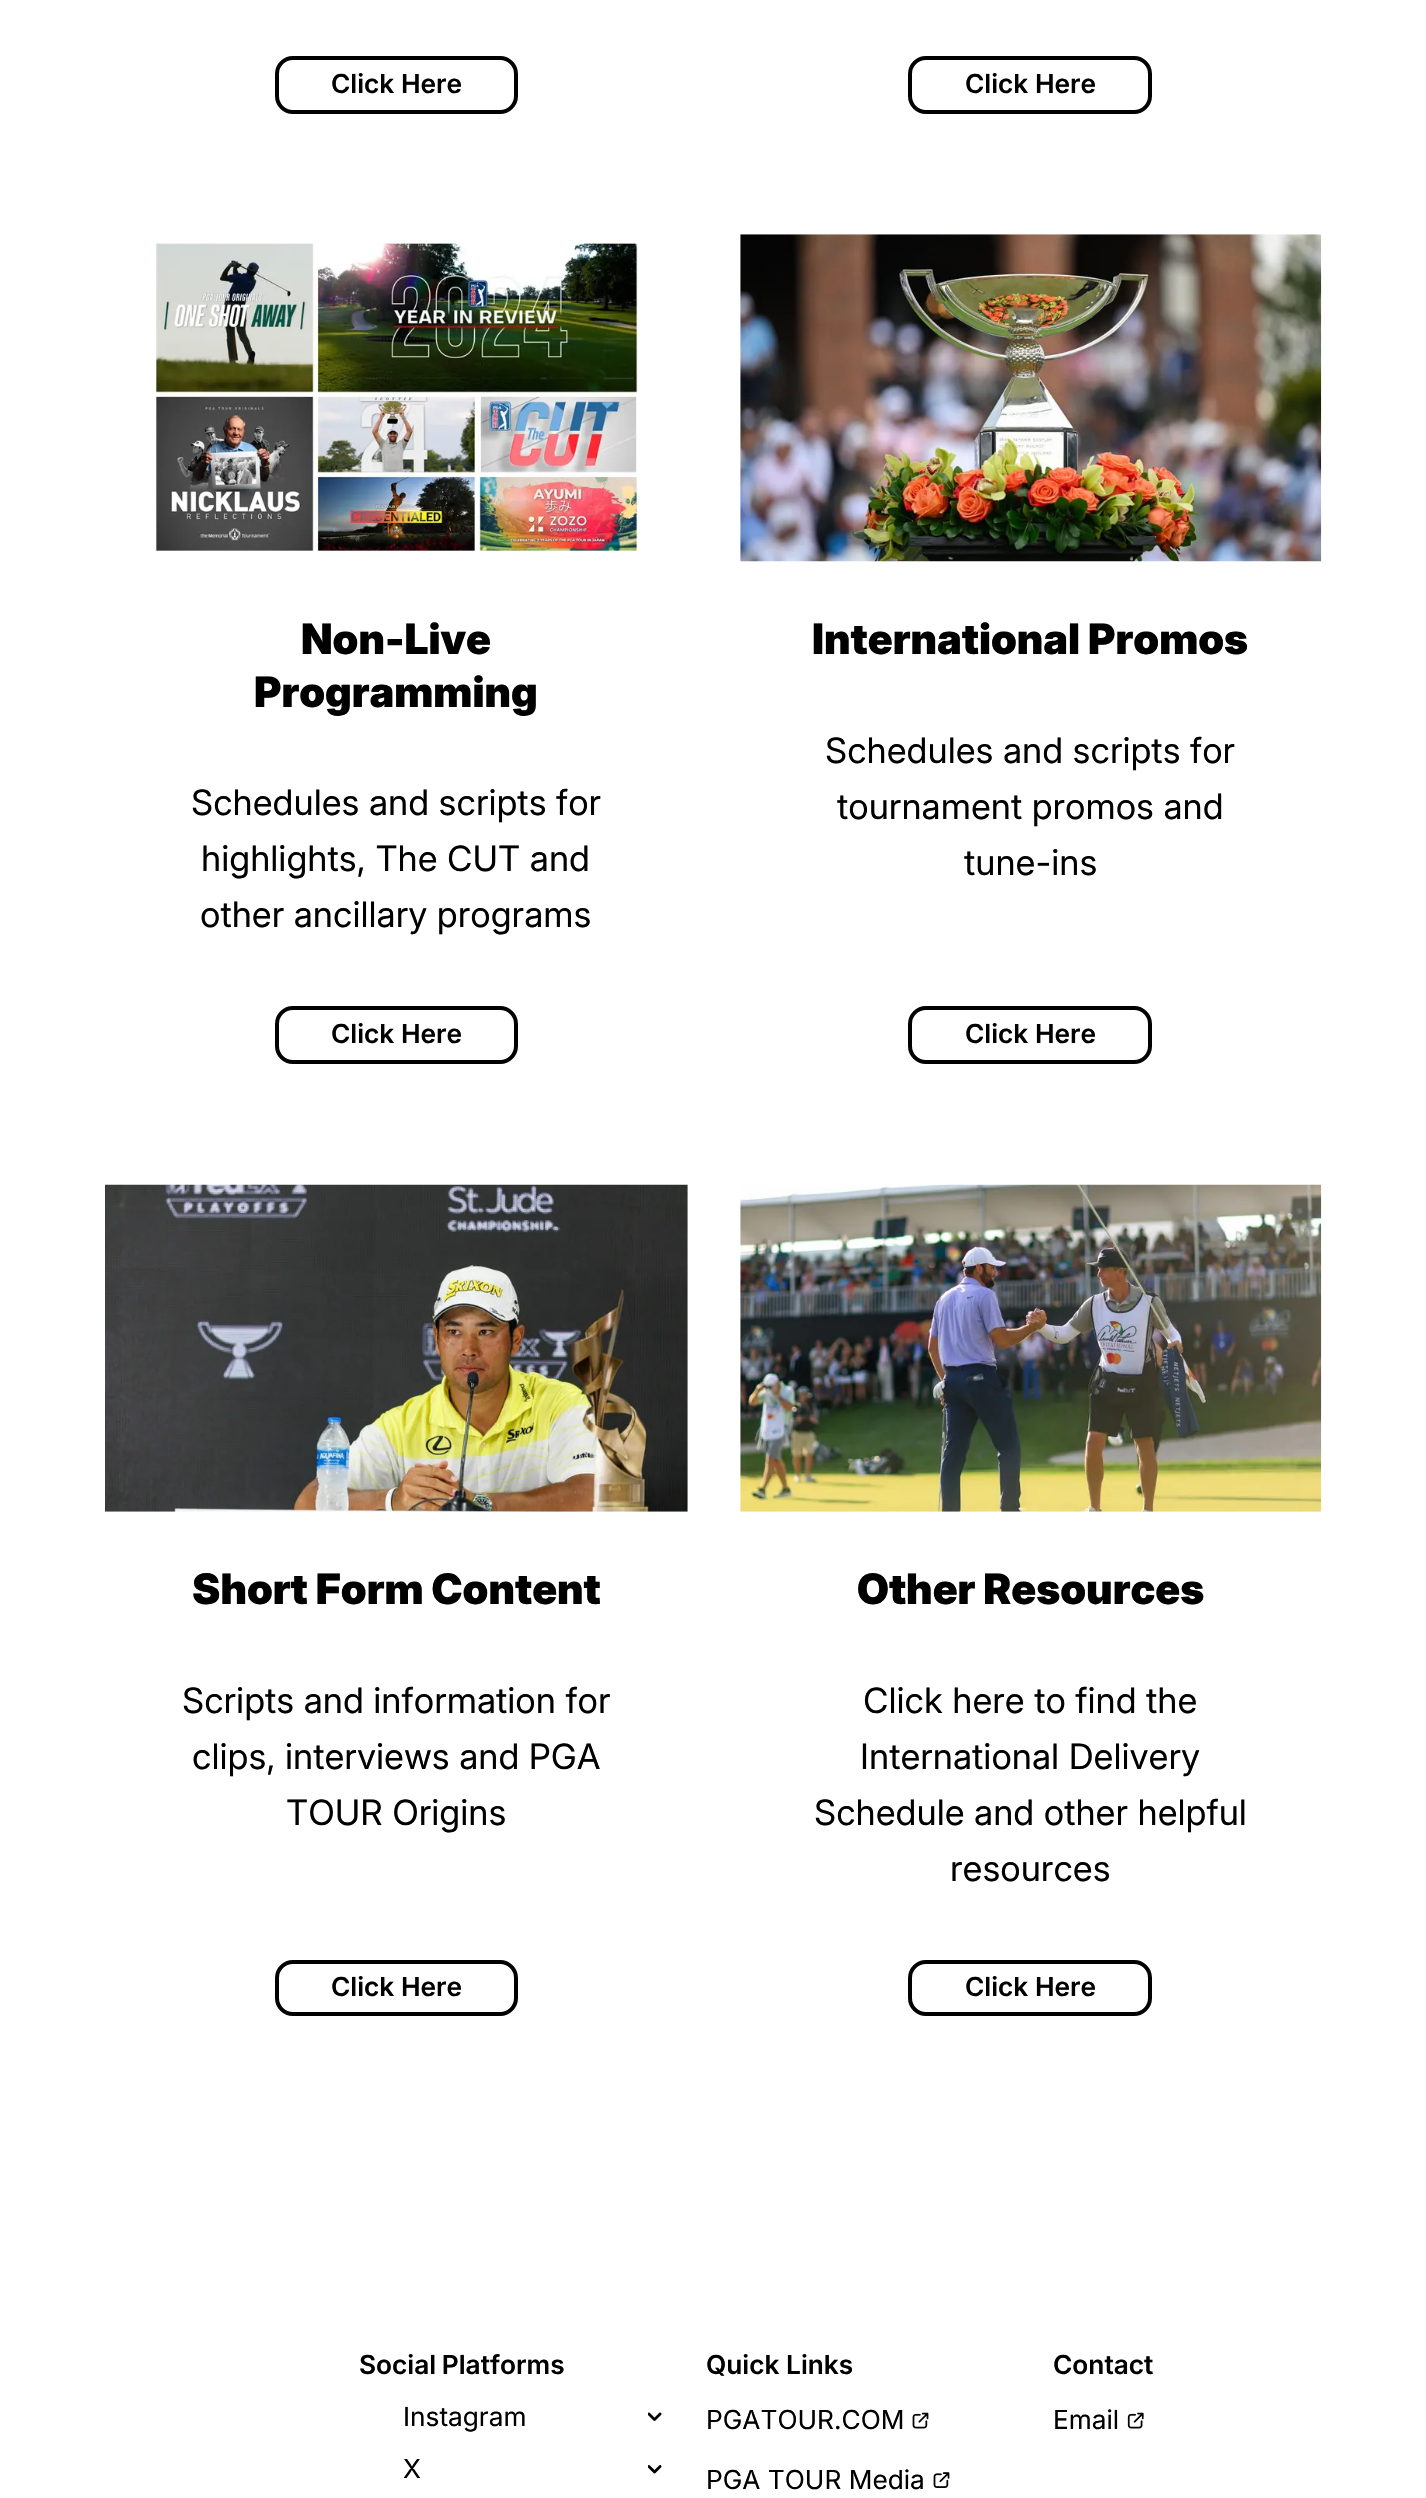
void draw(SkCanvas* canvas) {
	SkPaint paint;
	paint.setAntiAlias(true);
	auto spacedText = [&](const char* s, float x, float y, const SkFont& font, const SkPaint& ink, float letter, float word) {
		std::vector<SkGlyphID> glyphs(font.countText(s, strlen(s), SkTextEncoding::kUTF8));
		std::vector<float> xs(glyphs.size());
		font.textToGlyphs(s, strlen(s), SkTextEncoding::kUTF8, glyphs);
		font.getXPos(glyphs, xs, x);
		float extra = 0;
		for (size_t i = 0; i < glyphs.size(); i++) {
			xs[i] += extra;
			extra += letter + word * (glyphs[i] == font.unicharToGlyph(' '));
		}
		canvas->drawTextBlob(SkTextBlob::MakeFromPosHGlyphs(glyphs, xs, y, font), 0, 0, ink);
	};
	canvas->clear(0xffffffff);
	paint.setStroke(true);
	paint.setStrokeWidth(4);
	paint.setColor(0xff000000);
	canvas->drawRoundRect(SkRect::MakeXYWH(277, 58, 239, 54), 16, 16, paint);
	SkFont f1(fontMgr->matchFamilyStyle("Inter", SkFontStyle(600, SkFontStyle::kNormal_Width, SkFontStyle::kUpright_Slant)), 26.25);
	f1.setSubpixel(true);
	paint.setStroke(false);
	canvas->drawString("Click Here", 331, 93, f1, paint);
	paint.setStroke(true);
	canvas->drawRoundRect(SkRect::MakeXYWH(910, 58, 240, 54), 16, 16, paint);
	paint.setStroke(false);
	canvas->drawString("Click Here", 965, 93, f1, paint);
	canvas->drawImageRect(SkImages::DeferredFromEncodedData(SkData::MakeFromFileName("img1.png")), SkRect::MakeXYWH(156, 243, 482, 308), SkSamplingOptions());
	SkFont f2(fontMgr->matchFamilyStyle("Inter", SkFontStyle(900, SkFontStyle::kNormal_Width, SkFontStyle::kUpright_Slant)), 42);
	f2.setSubpixel(true);
	canvas->drawString("Non-Live", 301, 654, f2, paint);
	canvas->drawString("Programming", 254, 707, f2, paint);
	SkFont f3(fontMgr->matchFamilyStyle("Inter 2", SkFontStyle::Normal()), 35);
	f3.setSubpixel(true);
	canvas->drawString("Schedules and scripts for", 191, 815, f3, paint);
	canvas->drawString("highlights, The CUT and", 201, 871, f3, paint);
	canvas->drawString("other ancillary programs", 200, 927, f3, paint);
	paint.setStroke(true);
	canvas->drawRoundRect(SkRect::MakeXYWH(277, 1008, 239, 54), 16, 16, paint);
	paint.setStroke(false);
	canvas->drawString("Click Here", 331, 1043, f1, paint);
	canvas->drawImageRect(SkImages::DeferredFromEncodedData(SkData::MakeFromFileName("img2.png")), SkRect::MakeXYWH(740, 234, 582, 328), SkSamplingOptions());
	canvas->drawString("International Promos", 812, 654, f2, paint);
	canvas->drawString("Schedules and scripts for", 825, 763, f3, paint);
	canvas->drawString("tournament promos and", 837, 819, f3, paint);
	canvas->drawString("tune-ins", 964, 875, f3, paint);
	paint.setStroke(true);
	canvas->drawRoundRect(SkRect::MakeXYWH(910, 1008, 240, 54), 16, 16, paint);
	paint.setStroke(false);
	canvas->drawString("Click Here", 965, 1043, f1, paint);
	canvas->drawImageRect(SkImages::DeferredFromEncodedData(SkData::MakeFromFileName("img3.png")), SkRect::MakeXYWH(105, 1184, 583, 328), SkSamplingOptions());
	canvas->drawString("Short Form Content", 192, 1604, f2, paint);
	canvas->drawString("Scripts and information for", 182, 1713, f3, paint);
	canvas->drawString("clips, interviews and PGA", 192, 1769, f3, paint);
	canvas->drawString("TOUR Origins", 286, 1825, f3, paint);
	paint.setStroke(true);
	canvas->drawRoundRect(SkRect::MakeXYWH(277, 1962, 239, 52), 16, 16, paint);
	paint.setStroke(false);
	canvas->drawString("Click Here", 331, 1996, f1, paint);
	canvas->drawImageRect(SkImages::DeferredFromEncodedData(SkData::MakeFromFileName("img4.png")), SkRect::MakeXYWH(740, 1184, 582, 328), SkSamplingOptions());
	canvas->drawString("Other Resources", 857, 1604, f2, paint);
	canvas->drawString("Click here to find the", 863, 1713, f3, paint);
	canvas->drawString("International Delivery", 860, 1769, f3, paint);
	canvas->drawString("Schedule and other helpful", 814, 1825, f3, paint);
	canvas->drawString("resources", 950, 1881, f3, paint);
	paint.setStroke(true);
	canvas->drawRoundRect(SkRect::MakeXYWH(910, 1962, 240, 52), 16, 16, paint);
	paint.setStroke(false);
	canvas->drawString("Click Here", 965, 1996, f1, paint);
	spacedText("Social Platforms", 359, 2374, f1, paint, 0, -1);
	SkFont f4(fontMgr->matchFamilyStyle("Inter", SkFontStyle::Normal()), 26.25);
	f4.setSubpixel(true);
	canvas->drawString("Instagram", 403, 2426, f4, paint);
	canvas->drawImageRect(SkImages::DeferredFromEncodedData(SkData::MakeFromFileName("img5.png")), SkRect::MakeXYWH(648, 2412, 14, 9), SkSamplingOptions());
	canvas->drawString("X", 403, 2478, f4, paint);
	canvas->drawImageRect(SkImages::DeferredFromEncodedData(SkData::MakeFromFileName("img6.png")), SkRect::MakeXYWH(648, 2465, 14, 9), SkSamplingOptions());
	canvas->drawString("Quick Links", 706, 2374, f1, paint);
	canvas->drawString("PGATOUR.COM", 706, 2429, f4, paint);
	canvas->drawImageRect(SkImages::DeferredFromEncodedData(SkData::MakeFromFileName("img7.png")), SkRect::MakeXYWH(912, 2412, 17, 17), SkSamplingOptions());
	canvas->drawString("PGA TOUR Media", 706, 2489, f4, paint);
	canvas->drawImageRect(SkImages::DeferredFromEncodedData(SkData::MakeFromFileName("img8.png")), SkRect::MakeXYWH(933, 2472, 17, 16), SkSamplingOptions());
	canvas->drawString("Contact", 1053, 2374, f1, paint);
	canvas->drawString("Email", 1053, 2429, f4, paint);
	canvas->drawImageRect(SkImages::DeferredFromEncodedData(SkData::MakeFromFileName("img9.png")), SkRect::MakeXYWH(1127, 2412, 17, 17), SkSamplingOptions());
}
